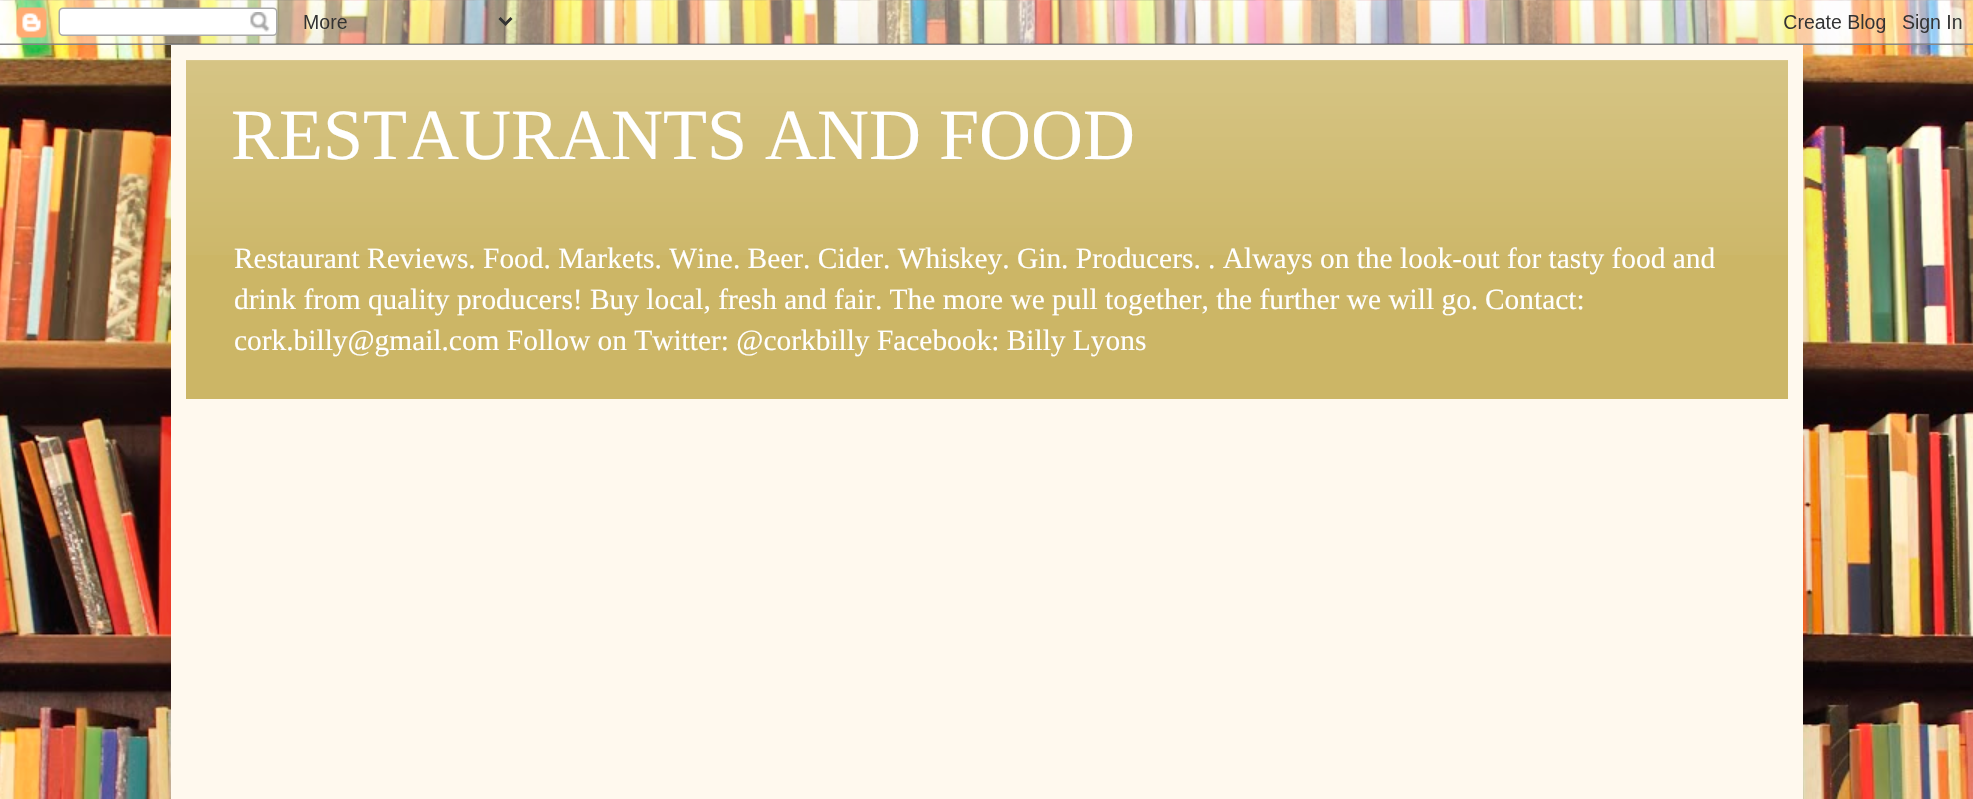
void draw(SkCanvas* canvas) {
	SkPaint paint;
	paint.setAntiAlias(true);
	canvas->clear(0xffffffff);
	canvas->drawImageRect(SkImages::DeferredFromEncodedData(SkData::MakeFromFileName("img1.png")), SkRect::MakeXYWH(0, 0, 1973, 799), SkSamplingOptions());
	paint.setColor(0x26000000);
	paint.setMaskFilter(SkMaskFilter::MakeBlur(kNormal_SkBlurStyle, 30));
	canvas->drawRect(SkRect::MakeXYWH(171, 45, 1632, 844), paint);
	paint.setMaskFilter(nullptr);
	canvas->drawImageRect(SkImages::DeferredFromEncodedData(SkData::MakeFromFileName("img2.png")), SkRect::MakeXYWH(0, 0, 1973, 45), SkSamplingOptions());
	paint.setColor(0xfffff9ee);
	canvas->drawRect(SkRect::MakeXYWH(171, 45, 1632, 754), paint);
	paint.setColor(0xffccb666);
	canvas->drawRect(SkRect::MakeXYWH(186, 60, 1602, 339), paint);
	canvas->drawImageRect(SkImages::DeferredFromEncodedData(SkData::MakeFromFileName("img3.png")), SkRect::MakeXYWH(186, 60, 1602, 195), SkSamplingOptions());
	SkFont f1(fontMgr->matchFamilyStyle("Liberation Serif", SkFontStyle::Normal()), 72);
	f1.setSubpixel(true);
	paint.setColor(0xffffffff);
	canvas->drawString("RESTAURANTS AND FOOD", 231, 159, f1, paint);
	SkFont f2(fontMgr->matchFamilyStyle("Liberation Serif", SkFontStyle::Normal()), 29.4);
	f2.setSubpixel(true);
	canvas->drawString("Restaurant Reviews. Food. Markets. Wine. Beer. Cider. Whiskey. Gin. Producers. . Always on the look-out for tasty food and", 234, 268, f2, paint);
	canvas->drawString("drink from quality producers! Buy local, fresh and fair. The more we pull together, the further we will go.", 234, 309, f2, paint);
	canvas->drawString("Contact:", 1485, 309, f2, paint);
	canvas->drawString("cork.billy@gmail.com Follow on Twitter: @corkbilly Facebook: Billy Lyons", 234, 350, f2, paint);
}
